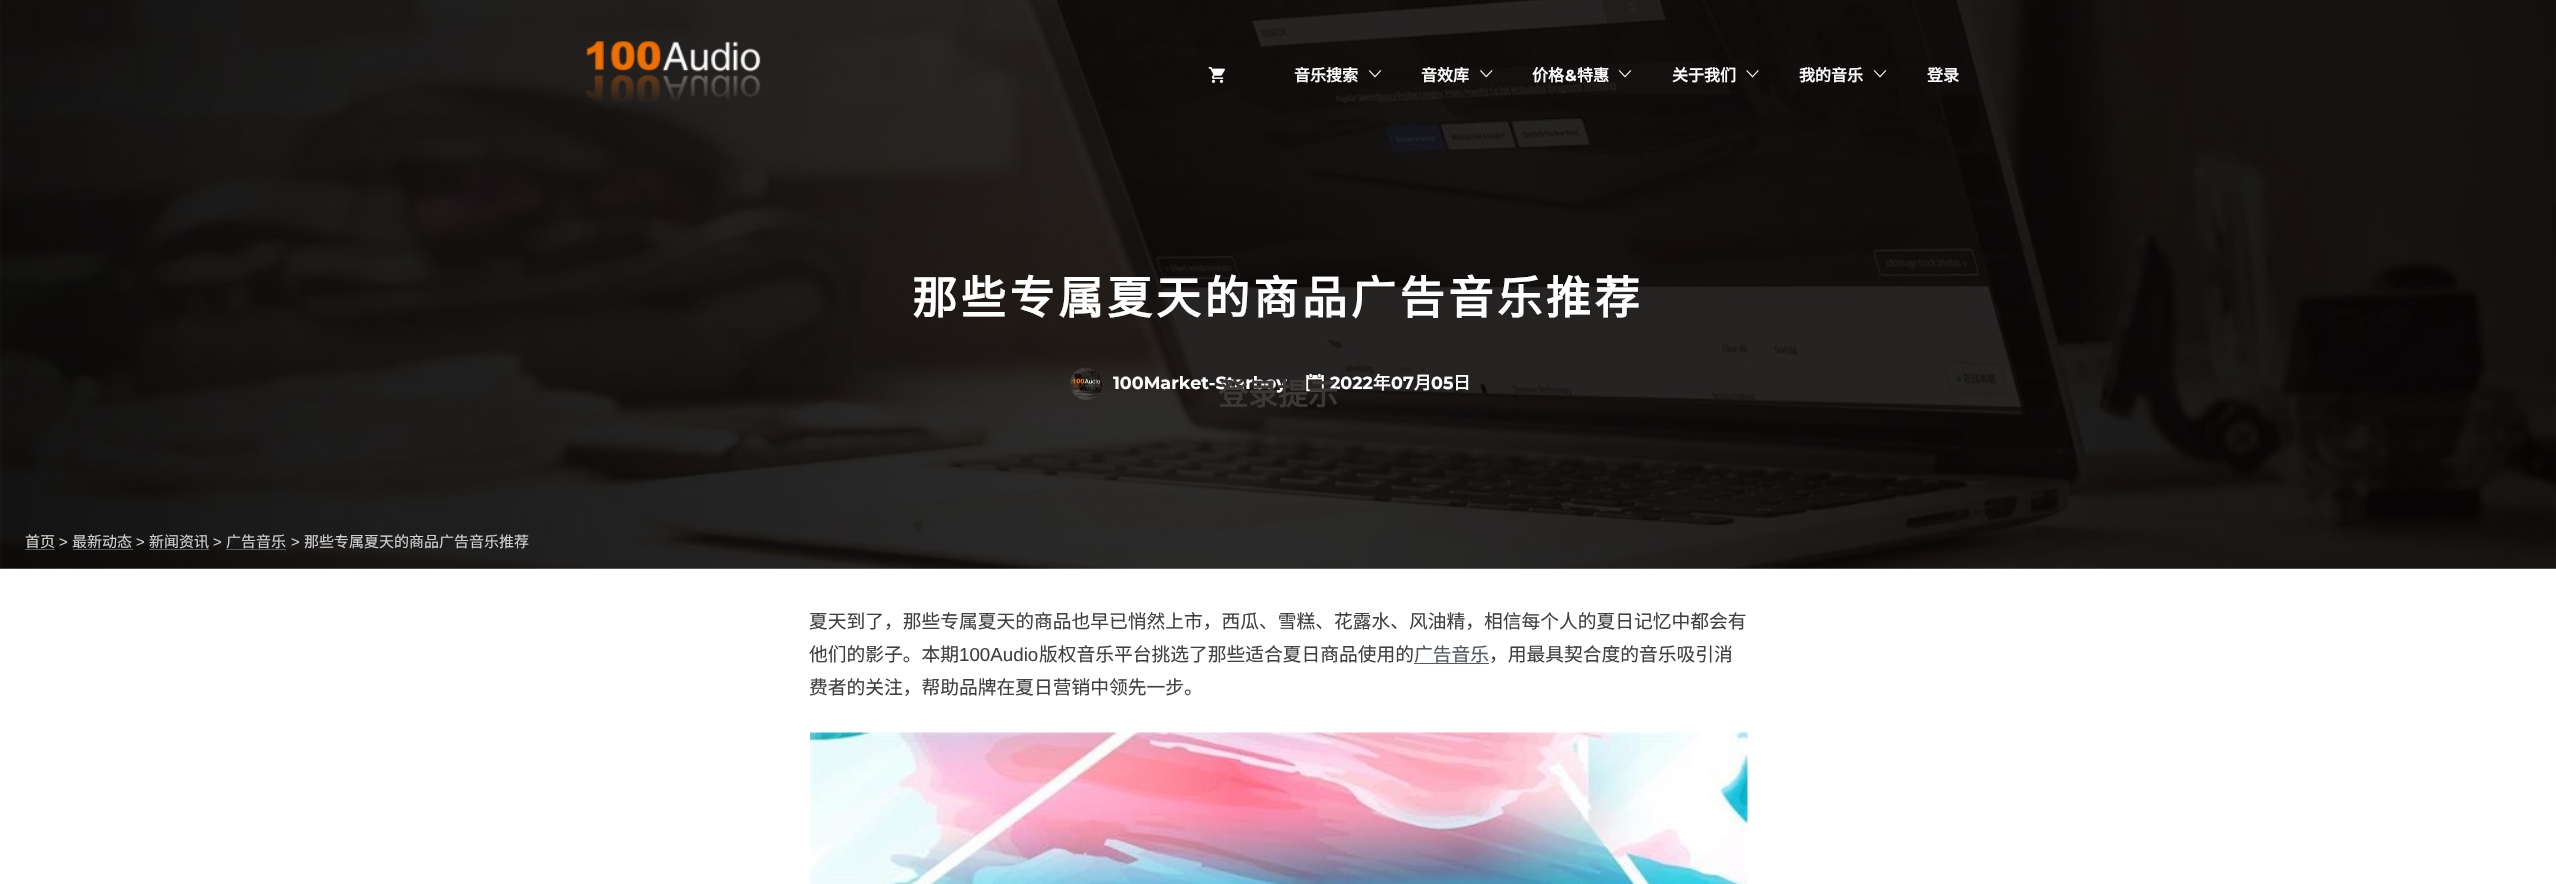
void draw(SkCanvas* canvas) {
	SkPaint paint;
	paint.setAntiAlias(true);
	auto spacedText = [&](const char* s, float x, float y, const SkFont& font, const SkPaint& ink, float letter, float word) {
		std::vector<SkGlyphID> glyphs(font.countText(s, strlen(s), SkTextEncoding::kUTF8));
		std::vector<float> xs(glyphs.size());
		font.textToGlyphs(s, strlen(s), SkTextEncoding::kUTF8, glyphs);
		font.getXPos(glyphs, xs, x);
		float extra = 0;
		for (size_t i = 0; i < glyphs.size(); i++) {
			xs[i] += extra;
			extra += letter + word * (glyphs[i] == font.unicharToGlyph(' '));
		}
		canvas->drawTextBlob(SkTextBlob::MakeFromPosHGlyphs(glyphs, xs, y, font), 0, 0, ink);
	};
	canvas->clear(0xffffffff);
	canvas->drawImageRect(SkImages::DeferredFromEncodedData(SkData::MakeFromFileName("img1.png")), SkRect::MakeXYWH(0, 0, 2556, 569), SkSamplingOptions());
	canvas->drawImageRect(SkImages::DeferredFromEncodedData(SkData::MakeFromFileName("img2.png")), SkRect::MakeXYWH(586, 41, 175, 61), SkSamplingOptions());
	canvas->drawImageRect(SkImages::DeferredFromEncodedData(SkData::MakeFromFileName("img3.png")), SkRect::MakeXYWH(1208, 67, 17, 16), SkSamplingOptions());
	SkFont f1(fontMgr->matchFamilyStyle("Noto Sans CJK SC", SkFontStyle::Bold()), 16);
	f1.setSubpixel(true);
	paint.setColor(0xffffffff);
	canvas->drawString("音乐搜索", 1294, 81, f1, paint);
	canvas->drawImageRect(SkImages::DeferredFromEncodedData(SkData::MakeFromFileName("img4.png")), SkRect::MakeXYWH(1368, 70, 14, 8), SkSamplingOptions());
	canvas->drawString("音效库", 1421, 81, f1, paint);
	canvas->drawImageRect(SkImages::DeferredFromEncodedData(SkData::MakeFromFileName("img5.png")), SkRect::MakeXYWH(1480, 70, 13, 8), SkSamplingOptions());
	canvas->drawString("价格", 1532, 81, f1, paint);
	SkFont f2(fontMgr->matchFamilyStyle("Montserrat", SkFontStyle::Bold()), 16);
	f2.setSubpixel(true);
	canvas->drawString("&", 1565, 81, f2, paint);
	canvas->drawString("特惠", 1577, 81, f1, paint);
	canvas->drawImageRect(SkImages::DeferredFromEncodedData(SkData::MakeFromFileName("img6.png")), SkRect::MakeXYWH(1618, 70, 14, 8), SkSamplingOptions());
	canvas->drawString("关于我们", 1672, 81, f1, paint);
	canvas->drawImageRect(SkImages::DeferredFromEncodedData(SkData::MakeFromFileName("img7.png")), SkRect::MakeXYWH(1746, 70, 13, 8), SkSamplingOptions());
	canvas->drawString("我的音乐", 1799, 81, f1, paint);
	canvas->drawImageRect(SkImages::DeferredFromEncodedData(SkData::MakeFromFileName("img8.png")), SkRect::MakeXYWH(1873, 70, 14, 8), SkSamplingOptions());
	canvas->drawString("登录", 1927, 81, f1, paint);
	SkFont f3(fontMgr->matchFamilyStyle("Noto Sans CJK SC", SkFontStyle::Bold()), 45);
	f3.setSubpixel(true);
	spacedText("那些专属夏天的商品广告音乐推荐", 912, 314, f3, paint, 3.75, 0);
	canvas->drawImageRect(SkImages::DeferredFromEncodedData(SkData::MakeFromFileName("img9.png")), SkRect::MakeXYWH(1070, 367, 33, 33), SkSamplingOptions());
	SkFont f4(fontMgr->matchFamilyStyle("Montserrat", SkFontStyle::Bold()), 17.5);
	f4.setSubpixel(true);
	canvas->drawString("100Market-Starboy", 1113, 389, f4, paint);
	canvas->drawImageRect(SkImages::DeferredFromEncodedData(SkData::MakeFromFileName("img10.png")), SkRect::MakeXYWH(1306, 373, 18, 19), SkSamplingOptions());
	canvas->drawString("2022", 1330, 389, f4, paint);
	SkFont f5(fontMgr->matchFamilyStyle("Noto Sans CJK SC", SkFontStyle::Bold()), 17.5);
	f5.setSubpixel(true);
	canvas->drawString("年", 1373, 389, f5, paint);
	canvas->drawString("07", 1391, 389, f4, paint);
	canvas->drawString("月", 1414, 389, f5, paint);
	canvas->drawString("05", 1431, 389, f4, paint);
	canvas->drawString("日", 1453, 389, f5, paint);
	SkFont f6(fontMgr->matchFamilyStyle("Noto Sans CJK SC", SkFontStyle::Normal()), 15);
	f6.setSubpixel(true);
	paint.setColor(0xffd0d0d0);
	canvas->drawString("首页", 25, 547, f6, paint);
	paint.setColor(0xff515a63);
	canvas->drawRect(SkRect::MakeXYWH(25, 549, 30, 1), paint);
	SkFont f7(fontMgr->matchFamilyStyle("Liberation Sans", SkFontStyle::Normal()), 15);
	f7.setSubpixel(true);
	paint.setColor(0xffd0d0d0);
	canvas->drawString(">", 59, 547, f7, paint);
	canvas->drawString("最新动态", 72, 547, f6, paint);
	paint.setColor(0xff515a63);
	canvas->drawRect(SkRect::MakeXYWH(73, 549, 60, 1), paint);
	paint.setColor(0xffd0d0d0);
	canvas->drawString(">", 136, 547, f7, paint);
	canvas->drawString("新闻资讯", 149, 547, f6, paint);
	paint.setColor(0xff515a63);
	canvas->drawRect(SkRect::MakeXYWH(149, 549, 60, 1), paint);
	paint.setColor(0xffd0d0d0);
	canvas->drawString(">", 213, 547, f7, paint);
	canvas->drawString("广告音乐", 226, 547, f6, paint);
	paint.setColor(0xff515a63);
	canvas->drawRect(SkRect::MakeXYWH(226, 549, 60, 1), paint);
	paint.setColor(0xffd0d0d0);
	canvas->drawString(">", 291, 547, f7, paint);
	canvas->drawString("那些专属夏天的商品广告音乐推荐", 304, 547, f6, paint);
	SkFont f8(fontMgr->matchFamilyStyle("Noto Sans CJK SC", SkFontStyle::Normal()), 18.75);
	f8.setSubpixel(true);
	paint.setColor(0xff404040);
	canvas->drawString("夏天到了，那些专属夏天的商品也早已悄然上市，西瓜、雪糕、花露水、风油精，相信每个人的夏日记忆中都会有", 809, 628, f8, paint);
	canvas->drawString("他们的影子。本期", 809, 661, f8, paint);
	SkFont f9(fontMgr->matchFamilyStyle("Liberation Sans", SkFontStyle::Normal()), 18.75);
	f9.setSubpixel(true);
	canvas->drawString("100Audio", 959, 661, f9, paint);
	canvas->drawString("版权音乐平台挑选了那些适合夏日商品使用的", 1039, 661, f8, paint);
	paint.setColor(0xff515a63);
	canvas->drawString("广告音乐", 1414, 661, f8, paint);
	canvas->drawRect(SkRect::MakeXYWH(1414, 663, 75, 1), paint);
	paint.setColor(0xff404040);
	canvas->drawString("，用最具契合度的音乐吸引消", 1489, 661, f8, paint);
	canvas->drawString("费者的关注，帮助品牌在夏日营销中领先一步。", 809, 694, f8, paint);
	canvas->drawImageRect(SkImages::DeferredFromEncodedData(SkData::MakeFromFileName("img11.png")), SkRect::MakeXYWH(810, 732, 938, 152), SkSamplingOptions());
	SkFont f10(fontMgr->matchFamilyStyle("Noto Sans CJK SC", SkFontStyle::Bold()), 30);
	f10.setSubpixel(true);
	paint.setColor(0xff3b3836);
	canvas->drawString("登录提示", 1218, 405, f10, paint);
}
